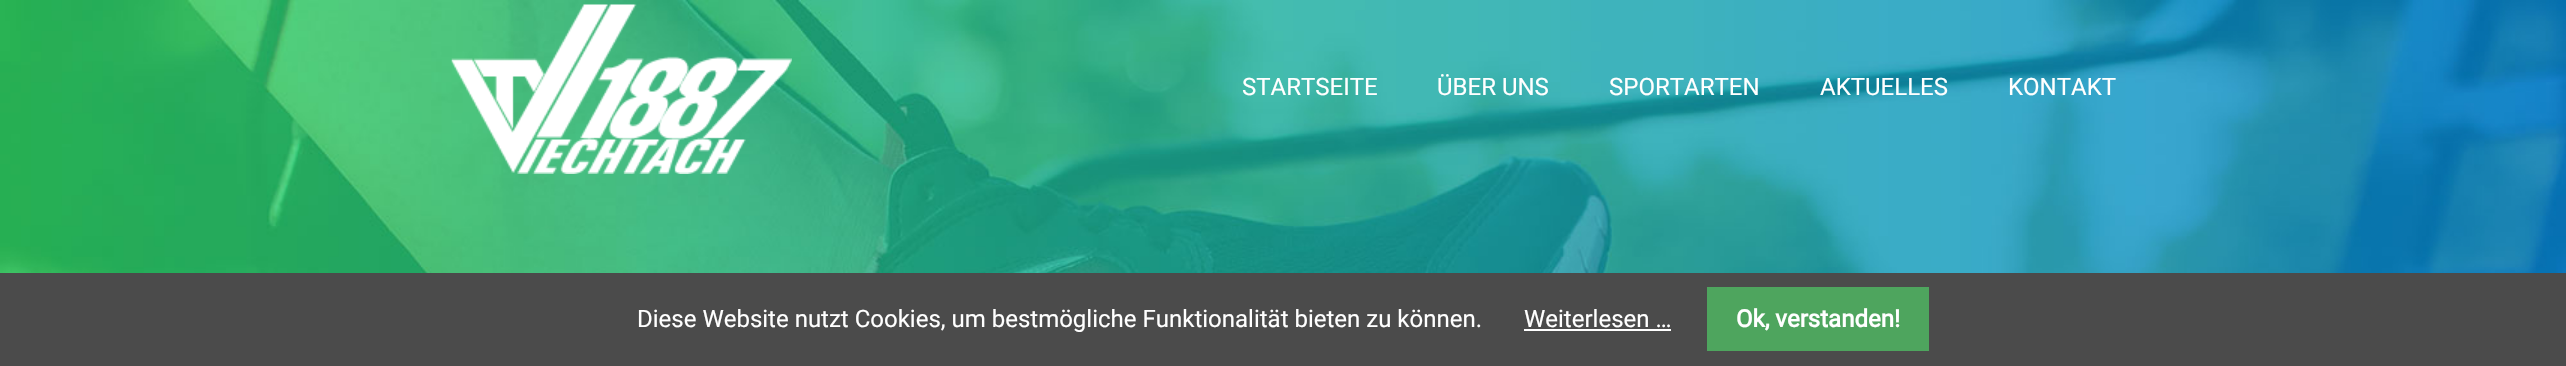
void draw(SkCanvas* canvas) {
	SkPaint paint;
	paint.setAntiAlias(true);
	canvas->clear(0xffffffff);
	canvas->drawImageRect(SkImages::DeferredFromEncodedData(SkData::MakeFromFileName("img1.png")), SkRect::MakeXYWH(0, 0, 2566, 273), SkSamplingOptions());
	canvas->drawImageRect(SkImages::DeferredFromEncodedData(SkData::MakeFromFileName("img2.png")), SkRect::MakeXYWH(451, 4, 341, 170), SkSamplingOptions());
	SkFont f1(fontMgr->matchFamilyStyle("Roboto", SkFontStyle::Normal()), 24);
	f1.setSubpixel(true);
	paint.setColor(0xffffffff);
	canvas->drawString("STARTSEITE", 1242, 95, f1, paint);
	canvas->drawString("ÜBER UNS", 1437, 95, f1, paint);
	canvas->drawString("SPORTARTEN", 1609, 95, f1, paint);
	canvas->drawString("AKTUELLES", 1820, 95, f1, paint);
	canvas->drawString("KONTAKT", 2008, 95, f1, paint);
	paint.setColor(0xff4b4b4b);
	canvas->drawRect(SkRect::MakeXYWH(0, 273, 2566, 93), paint);
	paint.setColor(0xffffffff);
	canvas->drawString("Diese Website nutzt Cookies, um bestmögliche Funktionalität bieten zu können.", 637, 327, f1, paint);
	canvas->drawString("Weiterlesen …", 1524, 327, f1, paint);
	canvas->drawRect(SkRect::MakeXYWH(1524, 329, 147, 2), paint);
	paint.setColor(0xff4ea55e);
	canvas->drawRect(SkRect::MakeXYWH(1707, 287, 222, 64), paint);
	SkFont f2(fontMgr->matchFamilyStyle("Roboto", SkFontStyle::Bold()), 24);
	f2.setSubpixel(true);
	paint.setColor(0xffffffff);
	canvas->drawString("Ok, verstanden!", 1736, 327, f2, paint);
}
